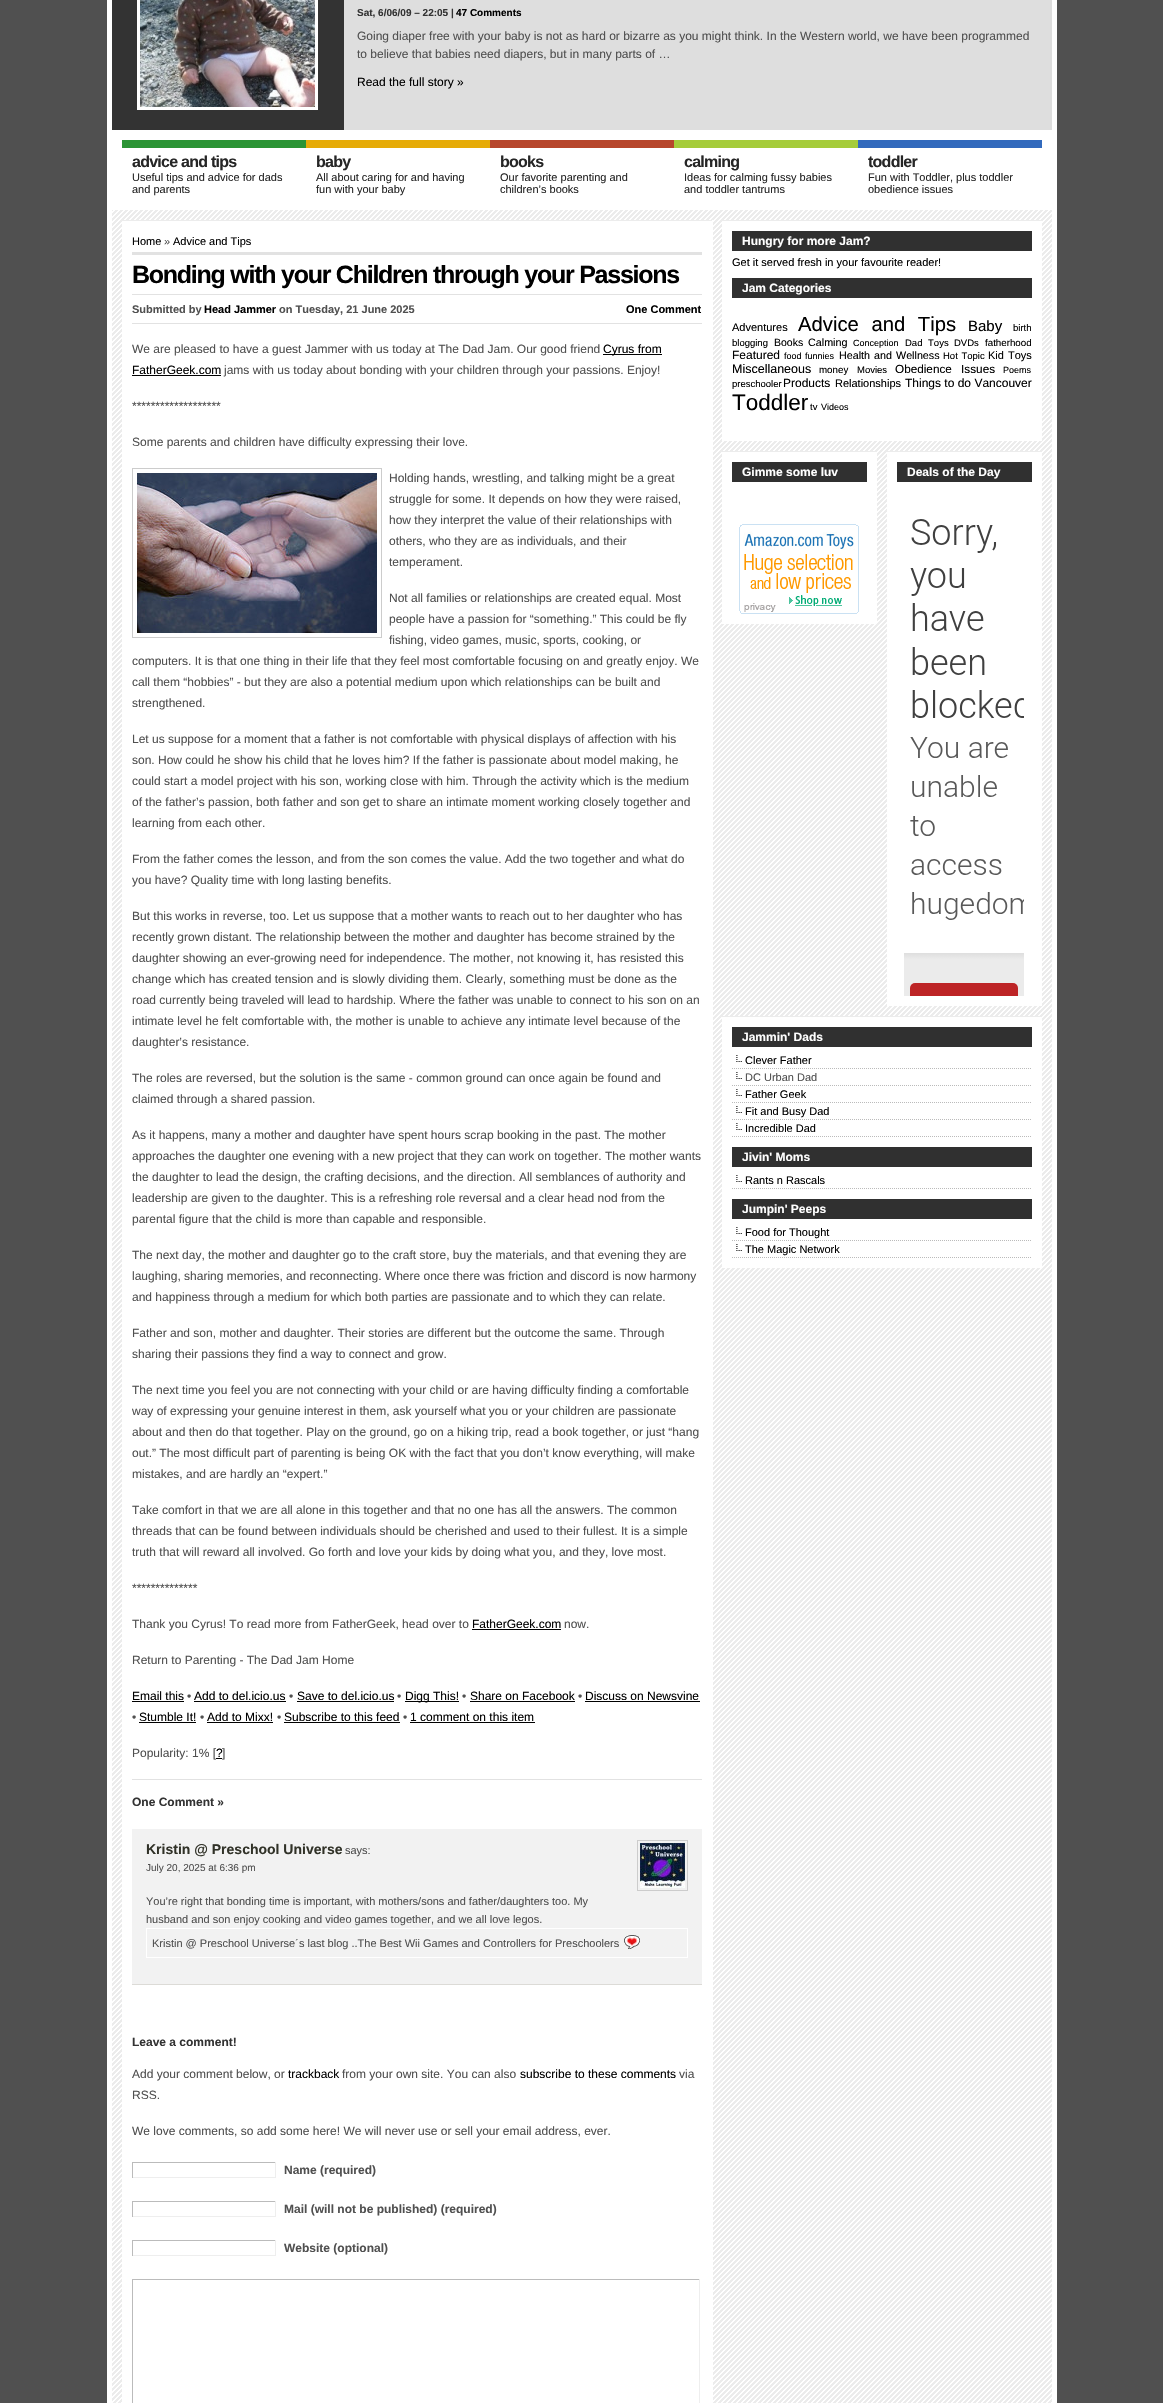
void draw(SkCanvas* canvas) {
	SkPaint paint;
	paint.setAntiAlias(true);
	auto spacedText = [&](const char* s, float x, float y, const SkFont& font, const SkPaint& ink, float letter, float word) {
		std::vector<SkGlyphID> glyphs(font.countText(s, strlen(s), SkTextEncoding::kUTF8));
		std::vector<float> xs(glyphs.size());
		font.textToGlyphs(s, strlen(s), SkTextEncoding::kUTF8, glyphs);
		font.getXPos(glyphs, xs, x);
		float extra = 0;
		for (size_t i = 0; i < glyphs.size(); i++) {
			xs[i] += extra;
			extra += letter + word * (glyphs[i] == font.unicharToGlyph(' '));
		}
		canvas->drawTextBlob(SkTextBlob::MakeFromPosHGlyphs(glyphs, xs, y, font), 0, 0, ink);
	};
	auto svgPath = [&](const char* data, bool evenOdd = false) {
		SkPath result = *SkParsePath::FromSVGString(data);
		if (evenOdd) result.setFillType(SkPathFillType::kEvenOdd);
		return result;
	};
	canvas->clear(0xff505050);
	paint.setColor(0xffdedede);
	canvas->drawRect(SkRect::MakeXYWH(344, 0, 708, 130), paint);
	paint.setColor(0xffffffff);
	canvas->drawRect(SkRect::MakeXYWH(1052, 0, 5, 130), paint);
	canvas->drawRect(SkRect::MakeXYWH(107, 0, 5, 130), paint);
	paint.setColor(0xff333333);
	canvas->drawRect(SkRect::MakeXYWH(112, 0, 232, 130), paint);
	paint.setStroke(true);
	paint.setStrokeWidth(3);
	paint.setColor(0xffffffff);
	canvas->drawRect(SkRect::MakeXYWH(138.5, -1.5, 178, 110), paint);
	canvas->drawImageRect(SkImages::DeferredFromEncodedData(SkData::MakeFromFileName("img1.png")), SkRect::MakeXYWH(140, 0, 175, 107), SkSamplingOptions());
	SkFont f1(fontMgr->matchFamilyStyle("Liberation Sans", SkFontStyle::Bold()), 10);
	f1.setSubpixel(true);
	paint.setStroke(false);
	paint.setColor(0xff333333);
	canvas->drawString("Sat, 6/06/09 – 22:05 |", 357, 16, f1, paint);
	paint.setColor(0xff000000);
	canvas->drawString("47 Comments", 456, 16, f1, paint);
	SkFont f2(fontMgr->matchFamilyStyle("Liberation Sans", SkFontStyle::Normal()), 12);
	f2.setSubpixel(true);
	paint.setColor(0xff505050);
	canvas->drawString("Going diaper free with your baby is not as hard or bizarre as you might think. In the Western world, we have been programmed", 357, 40, f2, paint);
	canvas->drawString("to believe that babies need diapers, but in many parts of …", 357, 58, f2, paint);
	paint.setColor(0xff000000);
	canvas->drawString("Read the full story »", 357, 86, f2, paint);
	paint.setColor(0xffffffff);
	canvas->drawRect(SkRect::MakeXYWH(107, 130, 950, 80), paint);
	paint.setColor(0xff2b9435);
	canvas->drawRect(SkRect::MakeXYWH(122, 140, 184, 8), paint);
	SkFont f3(fontMgr->matchFamilyStyle("Liberation Sans", SkFontStyle::Bold()), 16);
	f3.setSubpixel(true);
	paint.setColor(0xff262626);
	spacedText("advice and tips", 132, 167, f3, paint, -0.75, 0);
	SkFont f4(fontMgr->matchFamilyStyle("Liberation Sans", SkFontStyle::Normal()), 11);
	f4.setSubpixel(true);
	canvas->drawString("Useful tips and advice for dads", 132, 181, f4, paint);
	canvas->drawString("and parents", 132, 193, f4, paint);
	paint.setColor(0xffe6ab07);
	canvas->drawRect(SkRect::MakeXYWH(306, 140, 184, 8), paint);
	paint.setColor(0xff262626);
	spacedText("baby", 316, 167, f3, paint, -0.75, 0);
	canvas->drawString("All about caring for and having", 316, 181, f4, paint);
	canvas->drawString("fun with your baby", 316, 193, f4, paint);
	paint.setColor(0xffb7462c);
	canvas->drawRect(SkRect::MakeXYWH(490, 140, 184, 8), paint);
	paint.setColor(0xff262626);
	spacedText("books", 500, 167, f3, paint, -0.75, 0);
	canvas->drawString("Our favorite parenting and", 500, 181, f4, paint);
	canvas->drawString("children’s books", 500, 193, f4, paint);
	paint.setColor(0xffa5cc3a);
	canvas->drawRect(SkRect::MakeXYWH(674, 140, 184, 8), paint);
	paint.setColor(0xff262626);
	spacedText("calming", 684, 167, f3, paint, -0.75, 0);
	canvas->drawString("Ideas for calming fussy babies", 684, 181, f4, paint);
	canvas->drawString("and toddler tantrums", 684, 193, f4, paint);
	paint.setColor(0xff326abd);
	canvas->drawRect(SkRect::MakeXYWH(858, 140, 184, 8), paint);
	paint.setColor(0xff262626);
	spacedText("toddler", 868, 167, f3, paint, -0.75, 0);
	canvas->drawString("Fun with Toddler, plus toddler", 868, 181, f4, paint);
	canvas->drawString("obedience issues", 868, 193, f4, paint);
	canvas->drawImageRect(SkImages::DeferredFromEncodedData(SkData::MakeFromFileName("img2.png")), SkRect::MakeXYWH(112, 210, 940, 2193), SkSamplingOptions());
	paint.setColor(0xffffffff);
	canvas->drawRect(SkRect::MakeXYWH(1052, 210, 5, 2193), paint);
	canvas->drawRect(SkRect::MakeXYWH(107, 210, 5, 2193), paint);
	canvas->drawRect(SkRect::MakeXYWH(122, 220, 591, 2183), paint);
	paint.setColor(0xffececec);
	canvas->drawRect(SkRect::MakeXYWH(122, 220, 590, 1), paint);
	paint.setColor(0xff000000);
	canvas->drawString("Home", 132, 245, f4, paint);
	paint.setColor(0xff505050);
	canvas->drawString("»", 164, 245, f4, paint);
	paint.setColor(0xff000000);
	canvas->drawString("Advice and Tips", 173, 245, f4, paint);
	paint.setColor(0xffe2e2e2);
	canvas->drawRect(SkRect::MakeXYWH(132, 252, 570, 3), paint);
	canvas->drawRect(SkRect::MakeXYWH(132, 294, 570, 1), paint);
	SkFont f5(fontMgr->matchFamilyStyle("Liberation Sans", SkFontStyle::Bold()), 25);
	f5.setSubpixel(true);
	paint.setColor(0xff000000);
	spacedText("Bonding with your Children through your Passions", 132, 283, f5, paint, -1.25, 0);
	paint.setColor(0xffe2e2e2);
	canvas->drawRect(SkRect::MakeXYWH(132, 323, 570, 1), paint);
	SkFont f6(fontMgr->matchFamilyStyle("Liberation Sans", SkFontStyle::Bold()), 11);
	f6.setSubpixel(true);
	paint.setColor(0xff505050);
	canvas->drawString("Submitted by", 132, 313, f6, paint);
	paint.setColor(0xff000000);
	canvas->drawString("Head Jammer", 204, 313, f6, paint);
	paint.setColor(0xff505050);
	canvas->drawString("on Tuesday, 21 June 2025", 279, 313, f6, paint);
	paint.setColor(0xff000000);
	canvas->drawString("One Comment", 626, 313, f6, paint);
	paint.setColor(0xffe2e2e2);
	canvas->drawRect(SkRect::MakeXYWH(132, 1779, 570, 1), paint);
	paint.setColor(0xff505050);
	canvas->drawString("We are pleased to have a guest Jammer with us today at The Dad Jam. Our good friend", 132, 353, f2, paint);
	paint.setColor(0xff000000);
	canvas->drawRect(SkRect::MakeXYWH(603, 354, 59, 1), paint);
	canvas->drawString("Cyrus from", 603, 353, f2, paint);
	canvas->drawString("FatherGeek.com", 132, 374, f2, paint);
	canvas->drawRect(SkRect::MakeXYWH(132, 375, 89, 1), paint);
	paint.setColor(0xff505050);
	canvas->drawString("jams with us today about bonding with your children through your passions. Enjoy!", 224, 374, f2, paint);
	canvas->drawString("*******************", 132, 410, f2, paint);
	canvas->drawString("Some parents and children have difficulty expressing their love.", 132, 446, f2, paint);
	paint.setStroke(true);
	paint.setStrokeWidth(1);
	paint.setColor(0xffcccccc);
	canvas->drawRect(SkRect::MakeXYWH(132.5, 468.5, 249, 169), paint);
	canvas->drawImageRect(SkImages::DeferredFromEncodedData(SkData::MakeFromFileName("img3.png")), SkRect::MakeXYWH(137, 473, 240, 160), SkSamplingOptions());
	paint.setStroke(false);
	paint.setColor(0xff505050);
	canvas->drawString("Holding hands, wrestling, and talking might be a great", 389, 482, f2, paint);
	canvas->drawString("struggle for some. It depends on how they were raised,", 389, 503, f2, paint);
	canvas->drawString("how they interpret the value of their relationships with", 389, 524, f2, paint);
	canvas->drawString("others, who they are as individuals, and their", 389, 545, f2, paint);
	canvas->drawString("temperament.", 389, 566, f2, paint);
	canvas->drawString("Not all families or relationships are created equal. Most", 389, 602, f2, paint);
	canvas->drawString("people have a passion for “something.” This could be fly", 389, 623, f2, paint);
	canvas->drawString("fishing, video games, music, sports, cooking, or", 389, 644, f2, paint);
	canvas->drawString("computers. It is that one thing in their life that they feel most comfortable focusing on and greatly enjoy. We", 132, 665, f2, paint);
	canvas->drawString("call them “hobbies” - but they are also a potential medium upon which relationships can be built and", 132, 686, f2, paint);
	canvas->drawString("strengthened.", 132, 707, f2, paint);
	canvas->drawString("Let us suppose for a moment that a father is not comfortable with physical displays of affection with his", 132, 743, f2, paint);
	canvas->drawString("son. How could he show his child that he loves him? If the father is passionate about model making, he", 132, 764, f2, paint);
	canvas->drawString("could start a model project with his son, working close with him. Through the activity which is the medium", 132, 785, f2, paint);
	canvas->drawString("of the father’s passion, both father and son get to share an intimate moment working closely together and", 132, 806, f2, paint);
	canvas->drawString("learning from each other.", 132, 827, f2, paint);
	canvas->drawString("From the father comes the lesson, and from the son comes the value. Add the two together and what do", 132, 863, f2, paint);
	canvas->drawString("you have? Quality time with long lasting benefits.", 132, 884, f2, paint);
	canvas->drawString("But this works in reverse, too. Let us suppose that a mother wants to reach out to her daughter who has", 132, 920, f2, paint);
	canvas->drawString("recently grown distant. The relationship between the mother and daughter has become strained by the", 132, 941, f2, paint);
	canvas->drawString("daughter showing an ever-growing need for independence. The mother, not knowing it, has resisted this", 132, 962, f2, paint);
	canvas->drawString("change which has created tension and is slowly dividing them. Clearly, something must be done as the", 132, 983, f2, paint);
	canvas->drawString("road currently being traveled will lead to hardship. Where the father was unable to connect to his son on an", 132, 1004, f2, paint);
	canvas->drawString("intimate level he felt comfortable with, the mother is unable to achieve any intimate level because of the", 132, 1025, f2, paint);
	canvas->drawString("daughter’s resistance.", 132, 1046, f2, paint);
	canvas->drawString("The roles are reversed, but the solution is the same - common ground can once again be found and", 132, 1082, f2, paint);
	canvas->drawString("claimed through a shared passion.", 132, 1103, f2, paint);
	canvas->drawString("As it happens, many a mother and daughter have spent hours scrap booking in the past. The mother", 132, 1139, f2, paint);
	canvas->drawString("approaches the daughter one evening with a new project that they can work on together. The mother wants", 132, 1160, f2, paint);
	canvas->drawString("the daughter to lead the design, the crafting decisions, and the direction. All semblances of authority and", 132, 1181, f2, paint);
	canvas->drawString("leadership are given to the daughter. This is a refreshing role reversal and a clear head nod from the", 132, 1202, f2, paint);
	canvas->drawString("parental figure that the child is more than capable and responsible.", 132, 1223, f2, paint);
	canvas->drawString("The next day, the mother and daughter go to the craft store, buy the materials, and that evening they are", 132, 1259, f2, paint);
	canvas->drawString("laughing, sharing memories, and reconnecting. Where once there was friction and discord is now harmony", 132, 1280, f2, paint);
	canvas->drawString("and happiness through a medium for which both parties are passionate and to which they can relate.", 132, 1301, f2, paint);
	canvas->drawString("Father and son, mother and daughter. Their stories are different but the outcome the same. Through", 132, 1337, f2, paint);
	canvas->drawString("sharing their passions they find a way to connect and grow.", 132, 1358, f2, paint);
	canvas->drawString("The next time you feel you are not connecting with your child or are having difficulty finding a comfortable", 132, 1394, f2, paint);
	canvas->drawString("way of expressing your genuine interest in them, ask yourself what you or your children are passionate", 132, 1415, f2, paint);
	canvas->drawString("about and then do that together. Play on the ground, go on a hiking trip, read a book together, or just “hang", 132, 1436, f2, paint);
	canvas->drawString("out.” The most difficult part of parenting is being OK with the fact that you don’t know everything, will make", 132, 1457, f2, paint);
	canvas->drawString("mistakes, and are hardly an “expert.”", 132, 1478, f2, paint);
	canvas->drawString("Take comfort in that we are all alone in this together and that no one has all the answers. The common", 132, 1514, f2, paint);
	canvas->drawString("threads that can be found between individuals should be cherished and used to their fullest. It is a simple", 132, 1535, f2, paint);
	canvas->drawString("truth that will reward all involved. Go forth and love your kids by doing what you, and they, love most.", 132, 1556, f2, paint);
	canvas->drawString("**************", 132, 1592, f2, paint);
	canvas->drawString("Thank you Cyrus! To read more from FatherGeek, head over to", 132, 1628, f2, paint);
	paint.setColor(0xff000000);
	canvas->drawString("FatherGeek.com", 472, 1628, f2, paint);
	canvas->drawRect(SkRect::MakeXYWH(472, 1629, 89, 1), paint);
	paint.setColor(0xff505050);
	canvas->drawString("now.", 564, 1628, f2, paint);
	canvas->drawString("Return to Parenting - The Dad Jam Home", 132, 1664, f2, paint);
	paint.setColor(0xff000000);
	canvas->drawString("Email this", 132, 1700, f2, paint);
	canvas->drawRect(SkRect::MakeXYWH(132, 1701, 52, 1), paint);
	paint.setColor(0xff505050);
	canvas->drawString("•", 187, 1700, f2, paint);
	paint.setColor(0xff000000);
	canvas->drawString("Add to del.icio.us", 194, 1700, f2, paint);
	canvas->drawRect(SkRect::MakeXYWH(194, 1701, 92, 1), paint);
	paint.setColor(0xff505050);
	canvas->drawString("•", 289, 1700, f2, paint);
	paint.setColor(0xff000000);
	canvas->drawString("Save to del.icio.us", 297, 1700, f2, paint);
	canvas->drawRect(SkRect::MakeXYWH(297, 1701, 97, 1), paint);
	paint.setColor(0xff505050);
	canvas->drawString("•", 397, 1700, f2, paint);
	paint.setColor(0xff000000);
	canvas->drawRect(SkRect::MakeXYWH(405, 1701, 54, 1), paint);
	canvas->drawString("Digg This!", 405, 1700, f2, paint);
	paint.setColor(0xff505050);
	canvas->drawString("•", 462, 1700, f2, paint);
	paint.setColor(0xff000000);
	canvas->drawString("Share on Facebook", 470, 1700, f2, paint);
	canvas->drawRect(SkRect::MakeXYWH(470, 1701, 105, 1), paint);
	paint.setColor(0xff505050);
	canvas->drawString("•", 578, 1700, f2, paint);
	paint.setColor(0xff000000);
	canvas->drawString("Discuss on Newsvine", 585, 1700, f2, paint);
	canvas->drawRect(SkRect::MakeXYWH(585, 1701, 115, 1), paint);
	paint.setColor(0xff505050);
	canvas->drawString("•", 132, 1721, f2, paint);
	paint.setColor(0xff000000);
	canvas->drawString("Stumble It!", 139, 1721, f2, paint);
	canvas->drawRect(SkRect::MakeXYWH(139, 1722, 57, 1), paint);
	paint.setColor(0xff505050);
	canvas->drawString("•", 200, 1721, f2, paint);
	paint.setColor(0xff000000);
	canvas->drawString("Add to Mixx!", 207, 1721, f2, paint);
	canvas->drawRect(SkRect::MakeXYWH(207, 1722, 66, 1), paint);
	paint.setColor(0xff505050);
	canvas->drawString("•", 277, 1721, f2, paint);
	paint.setColor(0xff000000);
	canvas->drawString("Subscribe to this feed", 284, 1721, f2, paint);
	canvas->drawRect(SkRect::MakeXYWH(284, 1722, 116, 1), paint);
	paint.setColor(0xff505050);
	canvas->drawString("•", 403, 1721, f2, paint);
	paint.setColor(0xff000000);
	canvas->drawString("1 comment on this item", 410, 1721, f2, paint);
	canvas->drawRect(SkRect::MakeXYWH(410, 1722, 125, 1), paint);
	paint.setColor(0xff505050);
	canvas->drawString("Popularity: 1% [", 132, 1757, f2, paint);
	paint.setColor(0xff000000);
	canvas->drawString("?", 216, 1757, f2, paint);
	paint.setColor(0xff505050);
	canvas->drawString("]", 222, 1757, f2, paint);
	paint.setColor(0xff000000);
	canvas->drawRect(SkRect::MakeXYWH(216, 1758, 6, 1), paint);
	SkFont f7(fontMgr->matchFamilyStyle("Liberation Sans", SkFontStyle::Bold()), 12);
	f7.setSubpixel(true);
	paint.setColor(0xff333333);
	canvas->drawString("One Comment »", 132, 1806, f7, paint);
	paint.setColor(0xfff2f2f2);
	canvas->drawRect(SkRect::MakeXYWH(132, 1829, 570, 155), paint);
	paint.setColor(0xffdcdbd7);
	canvas->drawRect(SkRect::MakeXYWH(132, 1984, 570, 1), paint);
	SkFont f8(fontMgr->matchFamilyStyle("Liberation Sans", SkFontStyle::Bold()), 14);
	f8.setSubpixel(true);
	paint.setColor(0xff313228);
	canvas->drawString("Kristin @ Preschool Universe", 146, 1854, f8, paint);
	paint.setColor(0xff505050);
	canvas->drawString("says:", 345, 1854, f4, paint);
	paint.setStroke(true);
	paint.setColor(0xffcccccc);
	canvas->drawRect(SkRect::MakeXYWH(637.5, 1840.5, 50, 50), paint);
	canvas->drawImageRect(SkImages::DeferredFromEncodedData(SkData::MakeFromFileName("img4.png")), SkRect::MakeXYWH(640, 1843, 45, 45), SkSamplingOptions());
	SkFont f9(fontMgr->matchFamilyStyle("Liberation Sans", SkFontStyle::Normal()), 10);
	f9.setSubpixel(true);
	paint.setStroke(false);
	paint.setColor(0xff505050);
	canvas->drawString("July 20, 2025 at 6:36 pm", 146, 1871, f9, paint);
	canvas->drawString("You’re right that bonding time is important, with mothers/sons and father/daughters too. My", 146, 1905, f4, paint);
	canvas->drawString("husband and son enjoy cooking and video games together, and we all love legos.", 146, 1923, f4, paint);
	paint.setStroke(true);
	paint.setColor(0xffffffff);
	canvas->drawRect(SkRect::MakeXYWH(146.5, 1928.5, 541, 29), paint);
	paint.setStroke(false);
	paint.setColor(0xff505050);
	canvas->drawString("Kristin @ Preschool Universe´s last blog ..The Best Wii Games and Controllers for Preschoolers", 152, 1947, f4, paint);
	canvas->drawImageRect(SkImages::DeferredFromEncodedData(SkData::MakeFromFileName("img5.png")), SkRect::MakeXYWH(624, 1935, 16, 14), SkSamplingOptions());
	paint.setColor(0xff333333);
	canvas->drawString("Leave a comment!", 132, 2046, f7, paint);
	paint.setColor(0xff505050);
	canvas->drawString("Add your comment below, or", 132, 2078, f2, paint);
	paint.setColor(0xff000000);
	canvas->drawString("trackback", 288, 2078, f2, paint);
	paint.setColor(0xff505050);
	canvas->drawString("from your own site. You can also", 342, 2078, f2, paint);
	paint.setColor(0xff000000);
	canvas->drawString("subscribe to these comments", 520, 2078, f2, paint);
	paint.setColor(0xff505050);
	canvas->drawString("via", 679, 2078, f2, paint);
	canvas->drawString("RSS.", 132, 2099, f2, paint);
	canvas->drawString("We love comments, so add some here! We will never use or sell your email address, ever.", 132, 2135, f2, paint);
	paint.setColor(0xffbbbbbb);
	canvas->drawRect(SkRect::MakeXYWH(132, 2162, 144, 1), paint);
	paint.setColor(0xffeeeeee);
	canvas->drawRect(SkRect::MakeXYWH(275, 2162, 1, 16), paint);
	canvas->drawRect(SkRect::MakeXYWH(132, 2177, 144, 1), paint);
	paint.setColor(0xffbbbbbb);
	canvas->drawRect(SkRect::MakeXYWH(132, 2162, 1, 16), paint);
	paint.setColor(0xff505050);
	canvas->drawString("Name (required)", 284, 2174, f7, paint);
	paint.setColor(0xffbbbbbb);
	canvas->drawRect(SkRect::MakeXYWH(132, 2201, 144, 1), paint);
	paint.setColor(0xffeeeeee);
	canvas->drawRect(SkRect::MakeXYWH(275, 2201, 1, 16), paint);
	canvas->drawRect(SkRect::MakeXYWH(132, 2216, 144, 1), paint);
	paint.setColor(0xffbbbbbb);
	canvas->drawRect(SkRect::MakeXYWH(132, 2201, 1, 16), paint);
	paint.setColor(0xff505050);
	canvas->drawString("Mail (will not be published) (required)", 284, 2213, f7, paint);
	paint.setColor(0xffbbbbbb);
	canvas->drawRect(SkRect::MakeXYWH(132, 2240, 144, 1), paint);
	paint.setColor(0xffeeeeee);
	canvas->drawRect(SkRect::MakeXYWH(275, 2240, 1, 16), paint);
	canvas->drawRect(SkRect::MakeXYWH(132, 2255, 144, 1), paint);
	paint.setColor(0xffbbbbbb);
	canvas->drawRect(SkRect::MakeXYWH(132, 2240, 1, 16), paint);
	paint.setColor(0xff505050);
	canvas->drawString("Website (optional)", 284, 2252, f7, paint);
	paint.setColor(0xffbbbbbb);
	canvas->drawRect(SkRect::MakeXYWH(132, 2279, 568, 1), paint);
	paint.setColor(0xffeeeeee);
	canvas->drawRect(SkRect::MakeXYWH(699, 2279, 1, 124), paint);
	paint.setColor(0xffbbbbbb);
	canvas->drawRect(SkRect::MakeXYWH(132, 2279, 1, 124), paint);
	paint.setColor(0xffffffff);
	canvas->drawRect(SkRect::MakeXYWH(722, 221, 320, 220), paint);
	paint.setColor(0xffececec);
	canvas->drawRect(SkRect::MakeXYWH(722, 220, 320, 1), paint);
	paint.setColor(0xff303030);
	canvas->drawRect(SkRect::MakeXYWH(732, 231, 300, 20), paint);
	paint.setColor(0xffffffff);
	canvas->drawString("Hungry for more Jam?", 742, 245, f7, paint);
	paint.setColor(0xff000000);
	canvas->drawString("Get it served fresh in your favourite reader!", 732, 266, f4, paint);
	paint.setColor(0xff303030);
	canvas->drawRect(SkRect::MakeXYWH(732, 278, 300, 20), paint);
	paint.setColor(0xffffffff);
	canvas->drawString("Jam Categories", 742, 292, f7, paint);
	paint.setColor(0xff000000);
	canvas->drawString("Adventures", 732, 331, f4, paint);
	SkFont f10(fontMgr->matchFamilyStyle("Liberation Sans", SkFontStyle::Normal()), 20.25);
	f10.setSubpixel(true);
	spacedText("Advice and Tips", 798, 331, f10, paint, 0, 7);
	SkFont f11(fontMgr->matchFamilyStyle("Liberation Sans", SkFontStyle::Normal()), 15);
	f11.setSubpixel(true);
	canvas->drawString("Baby", 968, 331, f11, paint);
	SkFont f12(fontMgr->matchFamilyStyle("Liberation Sans", SkFontStyle::Normal()), 9.5);
	f12.setSubpixel(true);
	canvas->drawString("birth", 1013, 331, f12, paint);
	canvas->drawString("blogging", 732, 346, f12, paint);
	SkFont f13(fontMgr->matchFamilyStyle("Liberation Sans", SkFontStyle::Normal()), 10.5);
	f13.setSubpixel(true);
	canvas->drawString("Books", 774, 346, f13, paint);
	SkFont f14(fontMgr->matchFamilyStyle("Liberation Sans", SkFontStyle::Normal()), 10.75);
	f14.setSubpixel(true);
	canvas->drawString("Calming", 808, 346, f14, paint);
	SkFont f15(fontMgr->matchFamilyStyle("Liberation Sans", SkFontStyle::Normal()), 9);
	f15.setSubpixel(true);
	canvas->drawString("Conception", 853, 346, f15, paint);
	spacedText("Dad Toys", 905, 346, f12, paint, 0, 3);
	canvas->drawString("DVDs", 954, 346, f12, paint);
	SkFont f16(fontMgr->matchFamilyStyle("Liberation Sans", SkFontStyle::Normal()), 9.75);
	f16.setSubpixel(true);
	canvas->drawString("fatherhood", 985, 346, f16, paint);
	canvas->drawString("Featured", 732, 359, f2, paint);
	canvas->drawString("food", 784, 359, f15, paint);
	canvas->drawString("funnies", 805, 359, f15, paint);
	spacedText("Health and Wellness", 839, 359, f14, paint, 0, 1);
	spacedText("Hot Topic", 943, 359, f12, paint, 0, 1);
	spacedText("Kid Toys", 988, 359, f4, paint, 0, 1);
	SkFont f17(fontMgr->matchFamilyStyle("Liberation Sans", SkFontStyle::Normal()), 12.5);
	f17.setSubpixel(true);
	canvas->drawString("Miscellaneous", 732, 373, f17, paint);
	canvas->drawString("money", 819, 373, f16, paint);
	canvas->drawString("Movies", 857, 373, f12, paint);
	SkFont f18(fontMgr->matchFamilyStyle("Liberation Sans", SkFontStyle::Normal()), 11.75);
	f18.setSubpixel(true);
	spacedText("Obedience Issues", 895, 373, f18, paint, 0, 6);
	canvas->drawString("Poems", 1003, 373, f15, paint);
	canvas->drawString("preschooler", 732, 387, f12, paint);
	canvas->drawString("Products", 783, 387, f2, paint);
	canvas->drawString("Relationships", 835, 387, f4, paint);
	canvas->drawString("Things to do Vancouver", 905, 387, f2, paint);
	SkFont f19(fontMgr->matchFamilyStyle("Liberation Sans", SkFontStyle::Normal()), 22.5);
	f19.setSubpixel(true);
	canvas->drawString("Toddler", 732, 410, f19, paint);
	canvas->drawString("tv", 810, 410, f12, paint);
	canvas->drawString("Videos", 821, 410, f15, paint);
	paint.setColor(0xffffffff);
	canvas->drawRect(SkRect::MakeXYWH(722, 452, 155, 172), paint);
	paint.setColor(0xffececec);
	canvas->drawRect(SkRect::MakeXYWH(722, 451, 155, 1), paint);
	paint.setColor(0xff303030);
	canvas->drawRect(SkRect::MakeXYWH(732, 462, 135, 20), paint);
	paint.setColor(0xffffffff);
	canvas->drawString("Gimme some luv", 742, 476, f7, paint);
	canvas->drawImageRect(SkImages::DeferredFromEncodedData(SkData::MakeFromFileName("img6.png")), SkRect::MakeXYWH(739, 524, 120, 90), SkSamplingOptions());
	canvas->drawRect(SkRect::MakeXYWH(887, 452, 155, 554), paint);
	paint.setColor(0xffececec);
	canvas->drawRect(SkRect::MakeXYWH(887, 451, 155, 1), paint);
	paint.setColor(0xff303030);
	canvas->drawRect(SkRect::MakeXYWH(897, 462, 135, 20), paint);
	paint.setColor(0xffffffff);
	canvas->drawString("Deals of the Day", 907, 476, f7, paint);
	canvas->drawImageRect(SkImages::DeferredFromEncodedData(SkData::MakeFromFileName("img7.png")), SkRect::MakeXYWH(904, 519, 120, 477), SkSamplingOptions());
	canvas->drawRect(SkRect::MakeXYWH(722, 1017, 320, 251), paint);
	paint.setColor(0xffececec);
	canvas->drawRect(SkRect::MakeXYWH(722, 1016, 320, 1), paint);
	paint.setColor(0xff303030);
	canvas->drawRect(SkRect::MakeXYWH(732, 1027, 300, 20), paint);
	paint.setColor(0xffffffff);
	canvas->drawString("Jammin' Dads", 742, 1041, f7, paint);
	canvas->drawImageRect(SkImages::DeferredFromEncodedData(SkData::MakeFromFileName("img8.png")), SkRect::MakeXYWH(736, 1055, 6, 7), SkSamplingOptions());
	paint.setStroke(true);
	paint.setColor(0xffbbbbbb);
	paint.setPathEffect(SkDashPathEffect::Make({{1, 1}}, 0));
	canvas->drawPath(svgPath("M732 1068.5H1032"), paint);
	paint.setPathEffect(nullptr);
	paint.setStroke(false);
	paint.setColor(0xff000000);
	canvas->drawString("Clever Father", 745, 1064, f4, paint);
	canvas->drawImageRect(SkImages::DeferredFromEncodedData(SkData::MakeFromFileName("img8.png")), SkRect::MakeXYWH(736, 1072, 6, 7), SkSamplingOptions());
	paint.setStroke(true);
	paint.setColor(0xffbbbbbb);
	paint.setPathEffect(SkDashPathEffect::Make({{1, 1}}, 0));
	canvas->drawPath(svgPath("M732 1085.5H1032"), paint);
	paint.setPathEffect(nullptr);
	paint.setStroke(false);
	paint.setColor(0xff505050);
	canvas->drawString("DC Urban Dad", 745, 1081, f4, paint);
	canvas->drawImageRect(SkImages::DeferredFromEncodedData(SkData::MakeFromFileName("img8.png")), SkRect::MakeXYWH(736, 1089, 6, 7), SkSamplingOptions());
	paint.setStroke(true);
	paint.setColor(0xffbbbbbb);
	paint.setPathEffect(SkDashPathEffect::Make({{1, 1}}, 0));
	canvas->drawPath(svgPath("M732 1102.5H1032"), paint);
	paint.setPathEffect(nullptr);
	paint.setStroke(false);
	paint.setColor(0xff000000);
	canvas->drawString("Father Geek", 745, 1098, f4, paint);
	canvas->drawImageRect(SkImages::DeferredFromEncodedData(SkData::MakeFromFileName("img8.png")), SkRect::MakeXYWH(736, 1106, 6, 7), SkSamplingOptions());
	paint.setStroke(true);
	paint.setColor(0xffbbbbbb);
	paint.setPathEffect(SkDashPathEffect::Make({{1, 1}}, 0));
	canvas->drawPath(svgPath("M732 1119.5H1032"), paint);
	paint.setPathEffect(nullptr);
	paint.setStroke(false);
	paint.setColor(0xff000000);
	canvas->drawString("Fit and Busy Dad", 745, 1115, f4, paint);
	canvas->drawImageRect(SkImages::DeferredFromEncodedData(SkData::MakeFromFileName("img8.png")), SkRect::MakeXYWH(736, 1123, 6, 7), SkSamplingOptions());
	paint.setStroke(true);
	paint.setColor(0xffbbbbbb);
	paint.setPathEffect(SkDashPathEffect::Make({{1, 1}}, 0));
	canvas->drawPath(svgPath("M732 1136.5H1032"), paint);
	paint.setPathEffect(nullptr);
	paint.setStroke(false);
	paint.setColor(0xff000000);
	canvas->drawString("Incredible Dad", 745, 1132, f4, paint);
	paint.setColor(0xff303030);
	canvas->drawRect(SkRect::MakeXYWH(732, 1147, 300, 20), paint);
	paint.setColor(0xffffffff);
	canvas->drawString("Jivin' Moms", 742, 1161, f7, paint);
	canvas->drawImageRect(SkImages::DeferredFromEncodedData(SkData::MakeFromFileName("img8.png")), SkRect::MakeXYWH(736, 1175, 6, 7), SkSamplingOptions());
	paint.setStroke(true);
	paint.setColor(0xffbbbbbb);
	paint.setPathEffect(SkDashPathEffect::Make({{1, 1}}, 0));
	canvas->drawPath(svgPath("M732 1188.5H1032"), paint);
	paint.setPathEffect(nullptr);
	paint.setStroke(false);
	paint.setColor(0xff000000);
	canvas->drawString("Rants n Rascals", 745, 1184, f4, paint);
	paint.setColor(0xff303030);
	canvas->drawRect(SkRect::MakeXYWH(732, 1199, 300, 20), paint);
	paint.setColor(0xffffffff);
	canvas->drawString("Jumpin' Peeps", 742, 1213, f7, paint);
	canvas->drawImageRect(SkImages::DeferredFromEncodedData(SkData::MakeFromFileName("img8.png")), SkRect::MakeXYWH(736, 1227, 6, 7), SkSamplingOptions());
	paint.setStroke(true);
	paint.setColor(0xffbbbbbb);
	paint.setPathEffect(SkDashPathEffect::Make({{1, 1}}, 0));
	canvas->drawPath(svgPath("M732 1240.5H1032"), paint);
	paint.setPathEffect(nullptr);
	paint.setStroke(false);
	paint.setColor(0xff000000);
	canvas->drawString("Food for Thought", 745, 1236, f4, paint);
	canvas->drawImageRect(SkImages::DeferredFromEncodedData(SkData::MakeFromFileName("img8.png")), SkRect::MakeXYWH(736, 1244, 6, 7), SkSamplingOptions());
	paint.setStroke(true);
	paint.setColor(0xffbbbbbb);
	paint.setPathEffect(SkDashPathEffect::Make({{1, 1}}, 0));
	canvas->drawPath(svgPath("M732 1257.5H1032"), paint);
	paint.setPathEffect(nullptr);
	paint.setStroke(false);
	paint.setColor(0xff000000);
	canvas->drawString("The Magic Network", 745, 1253, f4, paint);
}
